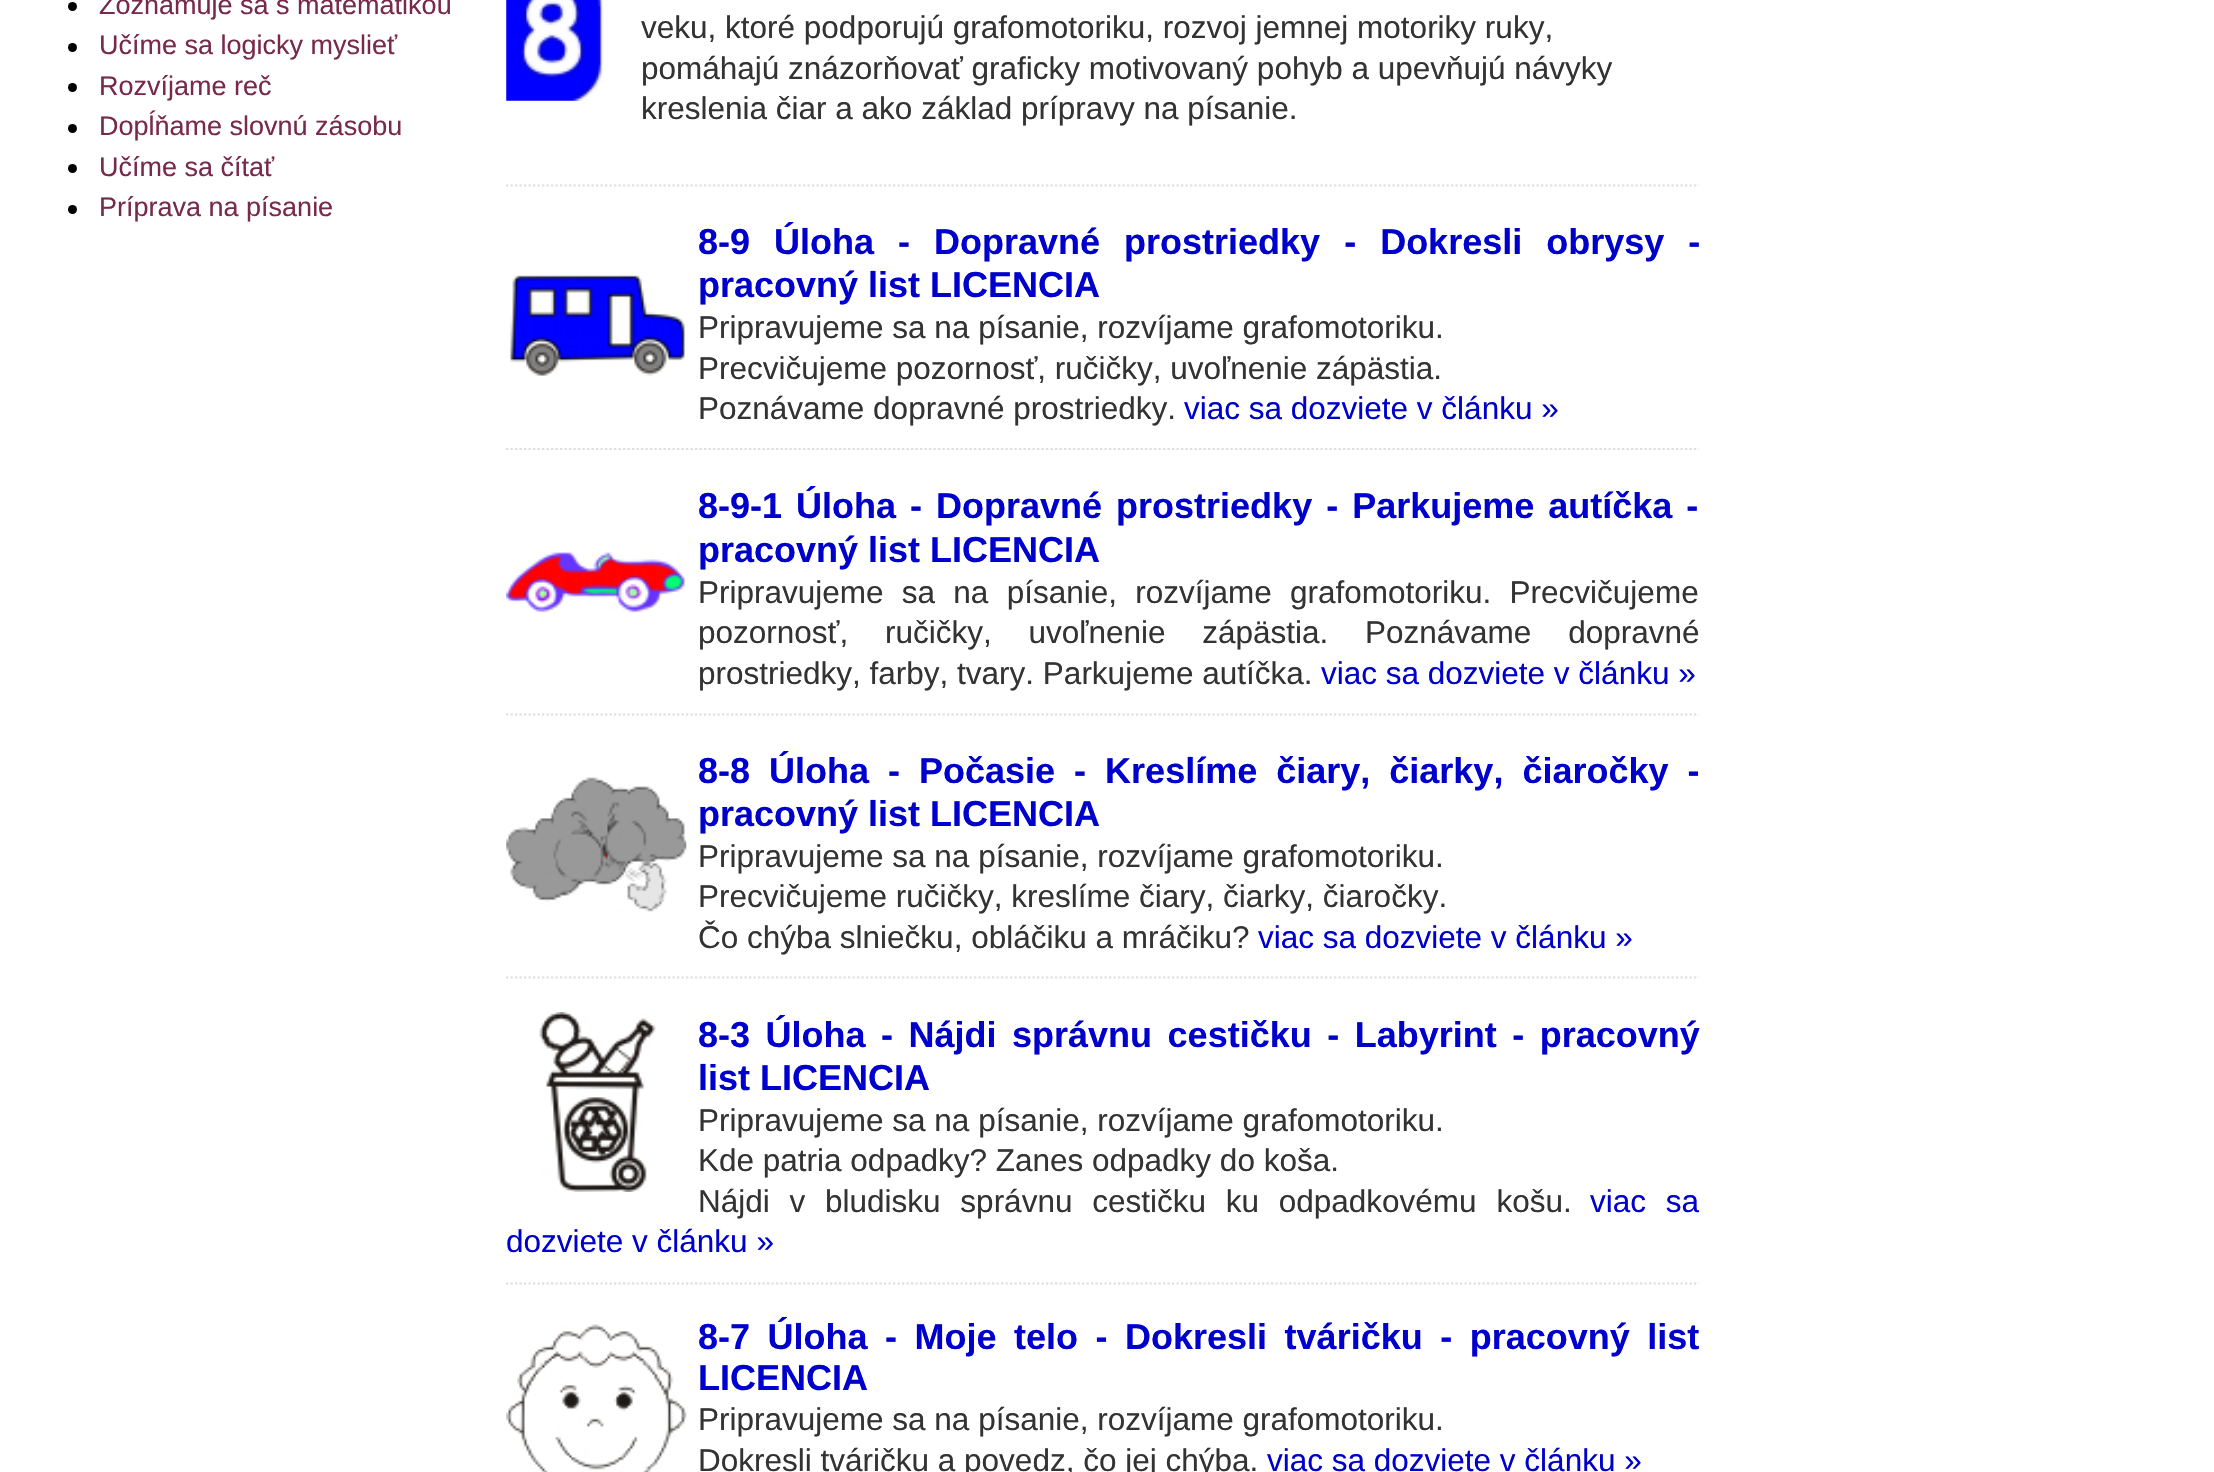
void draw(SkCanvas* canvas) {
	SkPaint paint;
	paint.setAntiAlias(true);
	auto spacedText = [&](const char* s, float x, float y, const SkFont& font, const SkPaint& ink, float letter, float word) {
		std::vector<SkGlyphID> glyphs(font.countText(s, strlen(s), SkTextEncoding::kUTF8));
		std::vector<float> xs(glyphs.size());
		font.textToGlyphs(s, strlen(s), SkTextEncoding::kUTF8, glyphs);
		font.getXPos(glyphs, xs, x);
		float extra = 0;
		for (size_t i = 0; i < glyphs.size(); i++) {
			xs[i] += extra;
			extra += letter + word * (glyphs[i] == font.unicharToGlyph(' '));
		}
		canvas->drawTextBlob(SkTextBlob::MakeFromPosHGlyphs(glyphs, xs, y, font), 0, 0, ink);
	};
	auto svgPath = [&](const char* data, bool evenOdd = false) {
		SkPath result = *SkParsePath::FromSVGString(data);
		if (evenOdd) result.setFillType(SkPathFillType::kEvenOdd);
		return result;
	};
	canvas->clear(0xffffffff);
	paint.setColor(0xff000000);
	canvas->drawCircle(72.5, 6.5, 4.5, paint);
	SkFont f1(fontMgr->matchFamilyStyle("Liberation Sans", SkFontStyle::Normal()), 27);
	f1.setSubpixel(true);
	paint.setColor(0xff782a4b);
	canvas->drawString("Zoznamuje sa s matematikou", 99, 14, f1, paint);
	paint.setColor(0xff000000);
	canvas->drawCircle(72.5, 47.5, 4.5, paint);
	paint.setColor(0xff782a4b);
	canvas->drawString("Učíme sa logicky myslieť", 99, 54, f1, paint);
	paint.setColor(0xff000000);
	canvas->drawCircle(72.5, 87.5, 4.5, paint);
	paint.setColor(0xff782a4b);
	canvas->drawString("Rozvíjame reč", 99, 95, f1, paint);
	paint.setColor(0xff000000);
	canvas->drawCircle(72.5, 128.5, 4.5, paint);
	paint.setColor(0xff782a4b);
	canvas->drawString("Dopĺňame slovnú zásobu", 99, 135, f1, paint);
	paint.setColor(0xff000000);
	canvas->drawCircle(72.5, 168.5, 4.5, paint);
	paint.setColor(0xff782a4b);
	canvas->drawString("Učíme sa čítať", 99, 176, f1, paint);
	paint.setColor(0xff000000);
	canvas->drawCircle(72.5, 209.5, 4.5, paint);
	paint.setColor(0xff782a4b);
	canvas->drawString("Príprava na písanie", 99, 216, f1, paint);
	canvas->drawImageRect(SkImages::DeferredFromEncodedData(SkData::MakeFromFileName("img1.png")), SkRect::MakeXYWH(506, 0, 98, 101), SkSamplingOptions());
	SkFont f2(fontMgr->matchFamilyStyle("Liberation Sans", SkFontStyle::Normal()), 31.5);
	f2.setSubpixel(true);
	paint.setColor(0xff333333);
	canvas->drawString("veku, ktoré podporujú grafomotoriku, rozvoj jemnej motoriky ruky,", 641, 38, f2, paint);
	canvas->drawString("pomáhajú znázorňovať graficky motivovaný pohyb a upevňujú návyky", 641, 79, f2, paint);
	canvas->drawString("kreslenia čiar a ako základ prípravy na písanie.", 641, 119, f2, paint);
	paint.setStroke(true);
	paint.setStrokeWidth(2.2);
	paint.setColor(0xffdddddd);
	paint.setPathEffect(SkDashPathEffect::Make({{2.25f, 2.25f}}, 0));
	canvas->drawPath(svgPath("M506 185.5H1699"), paint);
	paint.setPathEffect(nullptr);
	SkFont f3(fontMgr->matchFamilyStyle("Liberation Sans", SkFontStyle::Bold()), 36);
	f3.setSubpixel(true);
	paint.setStroke(false);
	paint.setColor(0xff0000cc);
	spacedText("8-9 Úloha - Dopravné prostriedky - Dokresli obrysy -", 698, 254, f3, paint, 0, 14);
	canvas->drawString("pracovný list LICENCIA", 698, 297, f3, paint);
	canvas->drawImageRect(SkImages::DeferredFromEncodedData(SkData::MakeFromFileName("img2.png")), SkRect::MakeXYWH(510, 275, 175, 101), SkSamplingOptions());
	paint.setColor(0xff333333);
	canvas->drawString("Pripravujeme sa na písanie, rozvíjame grafomotoriku.", 698, 338, f2, paint);
	canvas->drawString("Precvičujeme pozornosť, ručičky, uvoľnenie zápästia.", 698, 379, f2, paint);
	canvas->drawString("Poznávame dopravné prostriedky.", 698, 419, f2, paint);
	paint.setColor(0xff0000cc);
	canvas->drawString("viac sa dozviete v článku »", 1184, 419, f2, paint);
	paint.setStroke(true);
	paint.setColor(0xffdddddd);
	paint.setPathEffect(SkDashPathEffect::Make({{2.25f, 2.25f}}, 0));
	canvas->drawPath(svgPath("M506 449H1699"), paint);
	paint.setPathEffect(nullptr);
	paint.setStroke(false);
	paint.setColor(0xff0000cc);
	spacedText("8-9-1 Úloha - Dopravné prostriedky - Parkujeme autíčka -", 698, 518, f3, paint, 0, 4);
	canvas->drawString("pracovný list LICENCIA", 698, 562, f3, paint);
	canvas->drawImageRect(SkImages::DeferredFromEncodedData(SkData::MakeFromFileName("img3.png")), SkRect::MakeXYWH(506, 552, 179, 61), SkSamplingOptions());
	paint.setColor(0xff333333);
	spacedText("Pripravujeme sa na písanie, rozvíjame grafomotoriku. Precvičujeme", 698, 603, f2, paint, 0, 9.5);
	spacedText("pozornosť, ručičky, uvoľnenie zápästia. Poznávame dopravné", 698, 643, f2, paint, 0, 28);
	canvas->drawString("prostriedky, farby, tvary. Parkujeme autíčka.", 698, 684, f2, paint);
	paint.setColor(0xff0000cc);
	canvas->drawString("viac sa dozviete v článku »", 1321, 684, f2, paint);
	paint.setStroke(true);
	paint.setColor(0xffdddddd);
	paint.setPathEffect(SkDashPathEffect::Make({{2.25f, 2.25f}}, 0));
	canvas->drawPath(svgPath("M506 714.5H1699"), paint);
	paint.setPathEffect(nullptr);
	canvas->drawImageRect(SkImages::DeferredFromEncodedData(SkData::MakeFromFileName("img4.png")), SkRect::MakeXYWH(506, 777, 181, 135), SkSamplingOptions());
	paint.setStroke(false);
	paint.setColor(0xff0000cc);
	spacedText("8-8 Úloha - Počasie - Kreslíme čiary, čiarky, čiaročky -", 698, 783, f3, paint, 0, 9);
	canvas->drawString("pracovný list LICENCIA", 698, 826, f3, paint);
	paint.setColor(0xff333333);
	canvas->drawString("Pripravujeme sa na písanie, rozvíjame grafomotoriku.", 698, 867, f2, paint);
	canvas->drawString("Precvičujeme ručičky, kreslíme čiary, čiarky, čiaročky.", 698, 907, f2, paint);
	canvas->drawString("Čo chýba slniečku, obláčiku a mráčiku?", 698, 948, f2, paint);
	paint.setColor(0xff0000cc);
	canvas->drawString("viac sa dozviete v článku »", 1258, 948, f2, paint);
	paint.setStroke(true);
	paint.setColor(0xffdddddd);
	paint.setPathEffect(SkDashPathEffect::Make({{2.25f, 2.25f}}, 0));
	canvas->drawPath(svgPath("M506 977.5H1699"), paint);
	paint.setPathEffect(nullptr);
	canvas->drawImageRect(SkImages::DeferredFromEncodedData(SkData::MakeFromFileName("img5.png")), SkRect::MakeXYWH(539, 1012, 117, 180), SkSamplingOptions());
	paint.setStroke(false);
	paint.setColor(0xff0000cc);
	spacedText("8-3 Úloha - Nájdi správnu cestičku - Labyrint - pracovný", 698, 1047, f3, paint, 0, 5.5);
	canvas->drawString("list LICENCIA", 698, 1090, f3, paint);
	paint.setColor(0xff333333);
	canvas->drawString("Pripravujeme sa na písanie, rozvíjame grafomotoriku.", 698, 1131, f2, paint);
	canvas->drawString("Kde patria odpadky? Zanes odpadky do koša.", 698, 1171, f2, paint);
	spacedText("Nájdi v bludisku správnu cestičku ku odpadkovému košu.", 698, 1212, f2, paint, 0, 11);
	paint.setColor(0xff0000cc);
	spacedText("viac sa", 1590, 1212, f2, paint, 0, 11);
	canvas->drawString("dozviete v článku »", 506, 1252, f2, paint);
	paint.setStroke(true);
	paint.setColor(0xffdddddd);
	paint.setPathEffect(SkDashPathEffect::Make({{2.25f, 2.25f}}, 0));
	canvas->drawPath(svgPath("M506 1283.5H1699"), paint);
	paint.setPathEffect(nullptr);
	canvas->drawImageRect(SkImages::DeferredFromEncodedData(SkData::MakeFromFileName("img6.png")), SkRect::MakeXYWH(506, 1324, 181, 148), SkSamplingOptions());
	paint.setStroke(false);
	paint.setColor(0xff0000cc);
	spacedText("8-7 Úloha - Moje telo - Dokresli tváričku - pracovný list", 698, 1349, f3, paint, 0, 7.5);
	canvas->drawString("LICENCIA", 698, 1390, f3, paint);
	paint.setColor(0xff333333);
	canvas->drawString("Pripravujeme sa na písanie, rozvíjame grafomotoriku.", 698, 1430, f2, paint);
	canvas->drawString("Dokresli tváričku a povedz, čo jej chýba.", 698, 1471, f2, paint);
	paint.setColor(0xff0000cc);
	canvas->drawString("viac sa dozviete v článku »", 1267, 1471, f2, paint);
}
